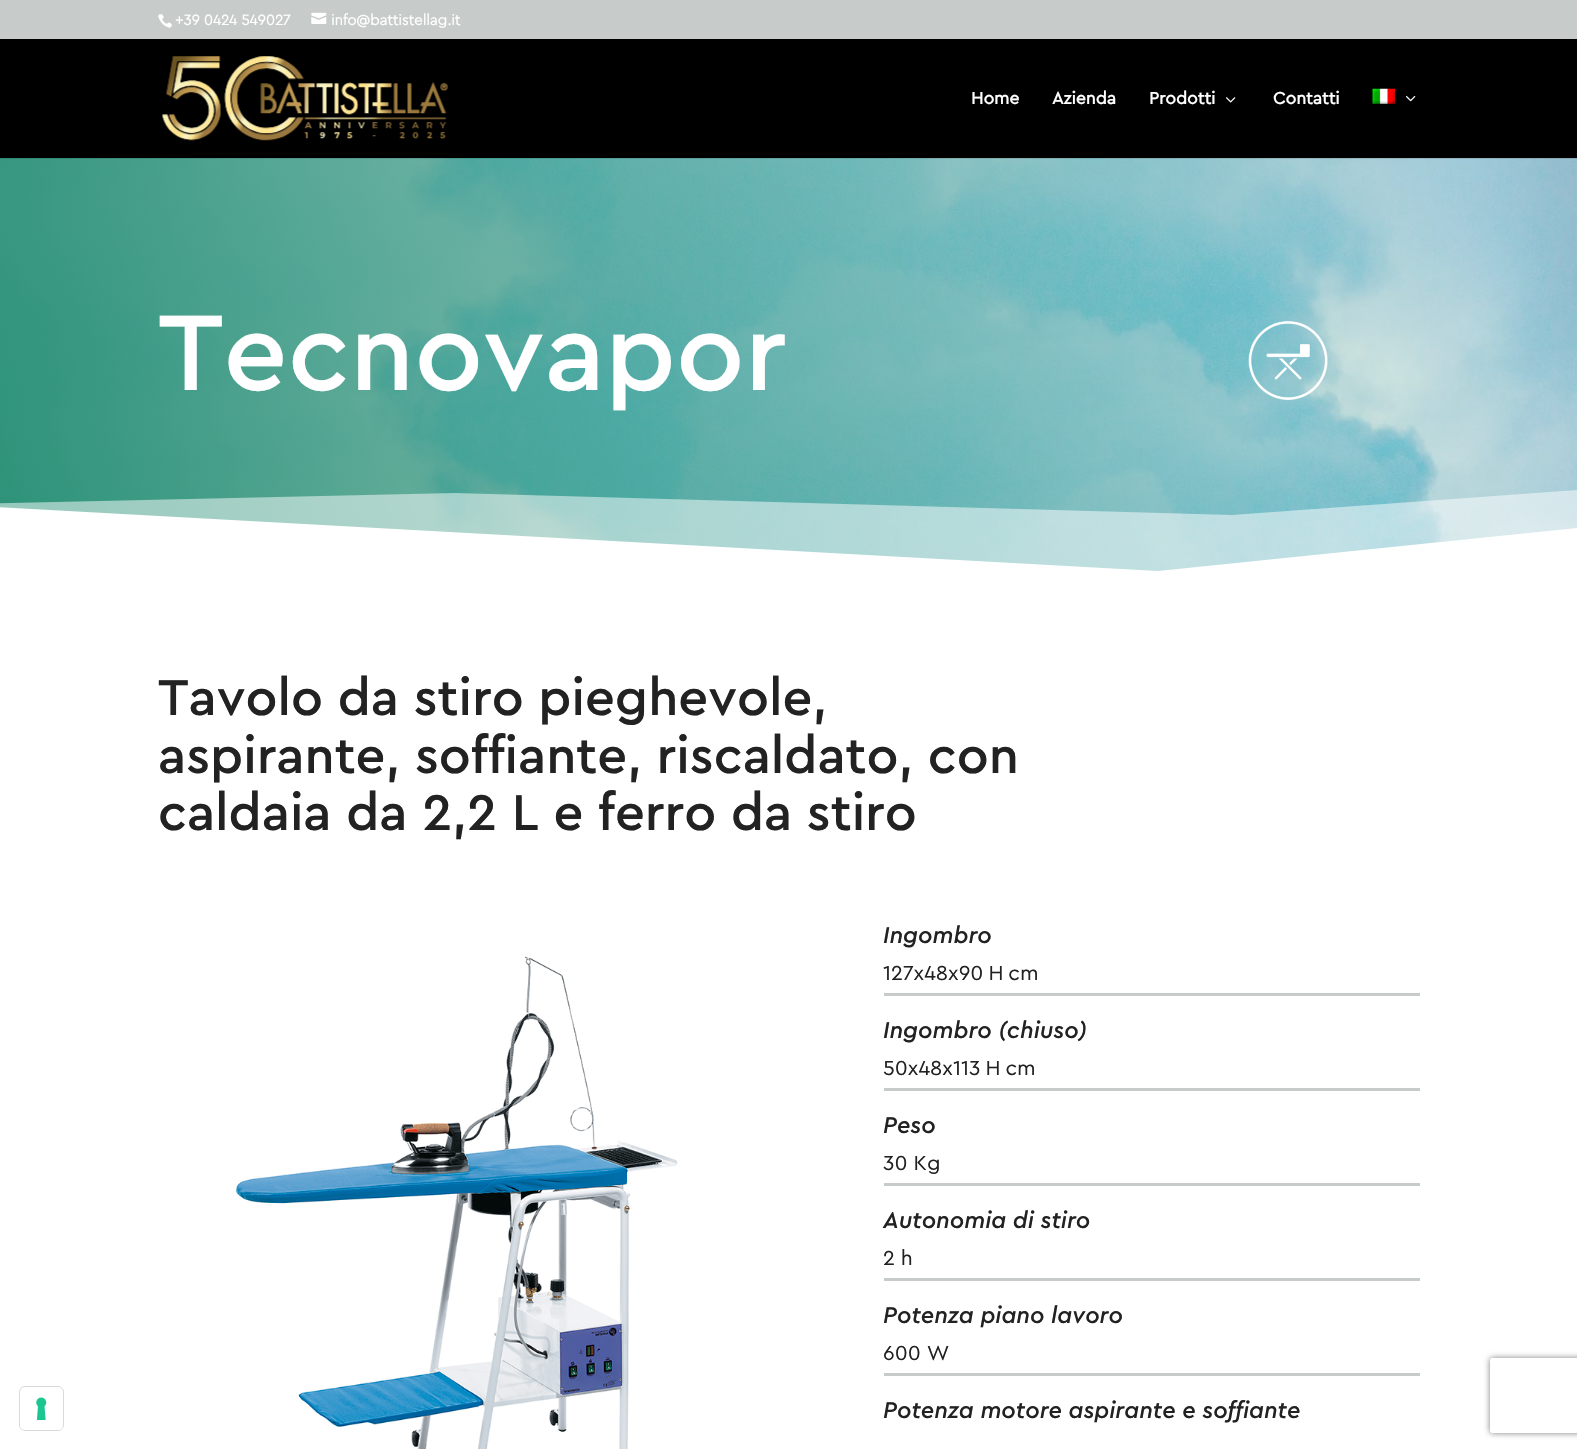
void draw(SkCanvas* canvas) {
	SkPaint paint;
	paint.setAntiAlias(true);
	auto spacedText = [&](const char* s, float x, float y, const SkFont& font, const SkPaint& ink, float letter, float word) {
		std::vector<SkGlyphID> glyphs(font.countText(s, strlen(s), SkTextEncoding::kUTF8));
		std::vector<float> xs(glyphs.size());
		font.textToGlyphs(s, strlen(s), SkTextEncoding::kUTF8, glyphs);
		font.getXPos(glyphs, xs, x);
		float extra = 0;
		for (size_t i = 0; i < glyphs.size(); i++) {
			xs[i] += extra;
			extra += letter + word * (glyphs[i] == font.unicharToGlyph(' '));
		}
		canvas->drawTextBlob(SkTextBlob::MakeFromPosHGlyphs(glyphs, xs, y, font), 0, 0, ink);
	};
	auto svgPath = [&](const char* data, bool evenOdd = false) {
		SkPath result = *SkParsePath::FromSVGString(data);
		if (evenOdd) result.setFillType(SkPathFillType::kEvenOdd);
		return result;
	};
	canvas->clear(0xffffffff);
	paint.setStroke(true);
	paint.setStrokeWidth(1);
	paint.setColor(0xffd9d9d9);
	canvas->drawRoundRect(SkRect::MakeXYWH(19.5, 1386.5, 44, 44), 5.5, 5.5, paint);
	paint.setStroke(false);
	paint.setColor(0xffffffff);
	canvas->drawRoundRect(SkRect::MakeXYWH(20, 1388, 43, 42), 5, 5, paint);
	canvas->drawImageRect(SkImages::DeferredFromEncodedData(SkData::MakeFromFileName("img1.png")), SkRect::MakeXYWH(36, 1397, 11, 23), SkSamplingOptions());
	paint.setColor(0xffc7cccb);
	canvas->drawRect(SkRect::MakeXYWH(0, 0, 1577, 39), paint);
	canvas->drawImageRect(SkImages::DeferredFromEncodedData(SkData::MakeFromFileName("img2.png")), SkRect::MakeXYWH(158, 14, 14, 14), SkSamplingOptions());
	SkFont f1(fontMgr->matchFamilyStyle("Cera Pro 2", SkFontStyle::Bold()), 15);
	f1.setSubpixel(true);
	paint.setColor(0xffffffff);
	canvas->drawString("+39 0424 549027", 175, 25, f1, paint);
	canvas->drawImageRect(SkImages::DeferredFromEncodedData(SkData::MakeFromFileName("img3.png")), SkRect::MakeXYWH(311, 12, 16, 12), SkSamplingOptions());
	canvas->drawString("info@battistellag.it", 331, 25, f1, paint);
	canvas->drawImageRect(SkImages::DeferredFromEncodedData(SkData::MakeFromFileName("img8.png")), SkRect::MakeXYWH(0, 158, 1577, 413), SkSamplingOptions());
	paint.setColor(0x1a000000);
	canvas->drawPath(svgPath("M0 158V159H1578V40V158Z"), paint);
	paint.setColor(0xff000000);
	canvas->drawRect(SkRect::MakeXYWH(0, 39, 1577, 119), paint);
	canvas->drawImageRect(SkImages::DeferredFromEncodedData(SkData::MakeFromFileName("img4.png")), SkRect::MakeXYWH(162, 56, 286, 85), SkSamplingOptions());
	SkFont f2(fontMgr->matchFamilyStyle("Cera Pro", SkFontStyle::Bold()), 17.5);
	f2.setSubpixel(true);
	paint.setColor(0xffffffff);
	canvas->drawString("Home", 971, 104, f2, paint);
	canvas->drawString("Azienda", 1052, 104, f2, paint);
	canvas->drawString("Prodotti", 1149, 104, f2, paint);
	canvas->drawImageRect(SkImages::DeferredFromEncodedData(SkData::MakeFromFileName("img5.png")), SkRect::MakeXYWH(1226, 97, 10, 6), SkSamplingOptions());
	canvas->drawString("Contatti", 1273, 104, f2, paint);
	canvas->drawImageRect(SkImages::DeferredFromEncodedData(SkData::MakeFromFileName("img6.png")), SkRect::MakeXYWH(1372, 88, 23, 16), SkSamplingOptions());
	canvas->drawImageRect(SkImages::DeferredFromEncodedData(SkData::MakeFromFileName("img7.png")), SkRect::MakeXYWH(1406, 96, 10, 6), SkSamplingOptions());
	SkFont f3(fontMgr->matchFamilyStyle("Cera Pro", SkFontStyle(500, SkFontStyle::kNormal_Width, SkFontStyle::kUpright_Slant)), 112.5);
	f3.setSubpixel(true);
	canvas->drawString("Tecnovapor", 158, 390, f3, paint);
	canvas->drawImageRect(SkImages::DeferredFromEncodedData(SkData::MakeFromFileName("img9.png")), SkRect::MakeXYWH(1248, 321, 80, 79), SkSamplingOptions());
	paint.setColor(0x80ffffff);
	canvas->drawPath(svgPath("M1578 490L1232 515L455 493L-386 512L-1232 477L-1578 490V571H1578Z"), paint);
	paint.setColor(0xffffffff);
	canvas->drawPath(svgPath("M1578 571V528L1158 571L-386 486L-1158 493L-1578 528V571Z"), paint);
	SkFont f4(fontMgr->matchFamilyStyle("Cera Pro", SkFontStyle(500, SkFontStyle::kNormal_Width, SkFontStyle::kUpright_Slant)), 52.5);
	f4.setSubpixel(true);
	paint.setColor(0xff222222);
	canvas->drawString("Tavolo da stiro pieghevole,", 158, 715, f4, paint);
	canvas->drawString("aspirante, soffiante, riscaldato, con", 158, 773, f4, paint);
	canvas->drawString("caldaia da 2,2 L e ferro da stiro", 158, 830, f4, paint);
	canvas->drawImageRect(SkImages::DeferredFromEncodedData(SkData::MakeFromFileName("img10.png")), SkRect::MakeXYWH(235, 956, 443, 493), SkSamplingOptions());
	paint.setColor(0xffc7cccb);
	canvas->drawRect(SkRect::MakeXYWH(884, 993, 536, 3), paint);
	SkFont f5(fontMgr->matchFamilyStyle("Cera Pro", SkFontStyle(500, SkFontStyle::kNormal_Width, SkFontStyle::kItalic_Slant)), 23.75);
	f5.setSubpixel(true);
	paint.setColor(0xff222222);
	canvas->drawString("Ingombro", 883, 943, f5, paint);
	SkFont f6(fontMgr->matchFamilyStyle("Cera Pro", SkFontStyle::Normal()), 21.25);
	f6.setSubpixel(true);
	spacedText("127x48x90 H cm", 883, 980, f6, paint, 0, -1);
	paint.setColor(0xffc7cccb);
	canvas->drawRect(SkRect::MakeXYWH(884, 1088, 536, 3), paint);
	paint.setColor(0xff222222);
	canvas->drawString("Ingombro (chiuso)", 883, 1038, f5, paint);
	spacedText("50x48x113 H cm", 883, 1075, f6, paint, 0, -1);
	paint.setColor(0xffc7cccb);
	canvas->drawRect(SkRect::MakeXYWH(884, 1183, 536, 3), paint);
	paint.setColor(0xff222222);
	canvas->drawString("Peso", 883, 1133, f5, paint);
	canvas->drawString("30 Kg", 883, 1170, f6, paint);
	paint.setColor(0xffc7cccb);
	canvas->drawRect(SkRect::MakeXYWH(884, 1278, 536, 3), paint);
	paint.setColor(0xff222222);
	canvas->drawString("Autonomia di stiro", 883, 1228, f5, paint);
	canvas->drawString("2 h", 883, 1265, f6, paint);
	paint.setColor(0xffc7cccb);
	canvas->drawRect(SkRect::MakeXYWH(884, 1373, 536, 3), paint);
	paint.setColor(0xff222222);
	canvas->drawString("Potenza piano lavoro", 883, 1323, f5, paint);
	canvas->drawString("600 W", 883, 1360, f6, paint);
	canvas->drawString("Potenza motore aspirante e soffiante", 883, 1418, f5, paint);
	canvas->save();
	canvas->clipPath(svgPath("M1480 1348H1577V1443H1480ZM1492.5 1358H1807.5C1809 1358 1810 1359 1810 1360.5V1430.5C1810 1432 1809 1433 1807.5 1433H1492.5C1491 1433 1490 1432 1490 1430.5V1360.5C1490 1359 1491 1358 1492.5 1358Z", true), true);
	paint.setColor(0xff808080);
	paint.setMaskFilter(SkMaskFilter::MakeBlur(kNormal_SkBlurStyle, 3));
	canvas->drawRoundRect(SkRect::MakeXYWH(1490, 1358, 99, 75), 2.5, 2.5, paint);
	paint.setMaskFilter(nullptr);
	canvas->restore();
}
